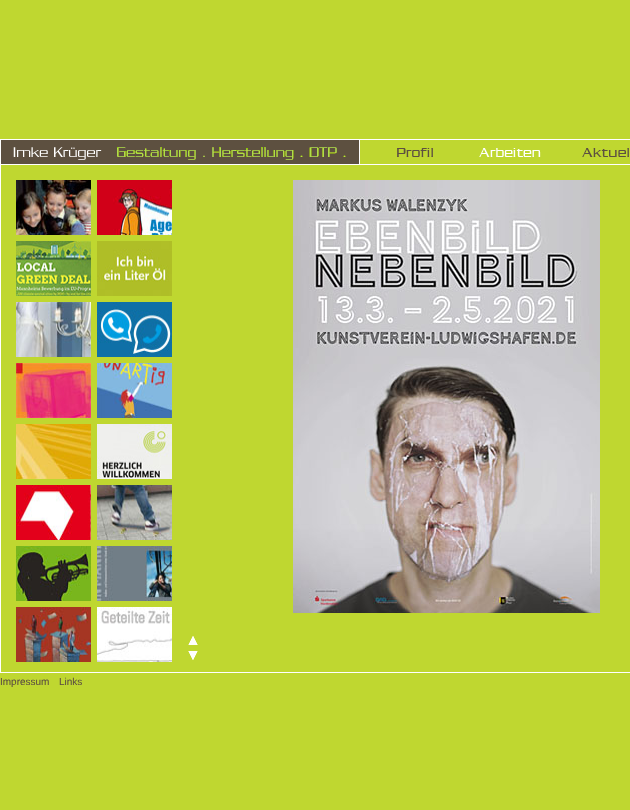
void draw(SkCanvas* canvas) {
	SkPaint paint;
	paint.setAntiAlias(true);
	canvas->clear(0xffbfd730);
	paint.setStroke(true);
	paint.setStrokeWidth(1);
	paint.setColor(0xffffffff);
	canvas->drawRect(SkRect::MakeXYWH(0.5, 139.5, 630, 533), paint);
	paint.setStroke(false);
	canvas->drawRect(SkRect::MakeXYWH(1, 164, 629, 1), paint);
	canvas->drawRect(SkRect::MakeXYWH(359, 140, 1, 24), paint);
	canvas->drawImageRect(SkImages::DeferredFromEncodedData(SkData::MakeFromFileName("img1.png")), SkRect::MakeXYWH(1, 140, 358, 24), SkSamplingOptions());
	canvas->drawImageRect(SkImages::DeferredFromEncodedData(SkData::MakeFromFileName("img2.png")), SkRect::MakeXYWH(397, 148, 36, 9), SkSamplingOptions());
	canvas->drawImageRect(SkImages::DeferredFromEncodedData(SkData::MakeFromFileName("img3.png")), SkRect::MakeXYWH(479, 148, 62, 9), SkSamplingOptions());
	canvas->drawImageRect(SkImages::DeferredFromEncodedData(SkData::MakeFromFileName("img4.png")), SkRect::MakeXYWH(582, 148, 47, 9), SkSamplingOptions());
	canvas->drawImageRect(SkImages::DeferredFromEncodedData(SkData::MakeFromFileName("img5.png")), SkRect::MakeXYWH(16, 180, 75, 55), SkSamplingOptions());
	canvas->drawImageRect(SkImages::DeferredFromEncodedData(SkData::MakeFromFileName("img6.png")), SkRect::MakeXYWH(97, 180, 75, 55), SkSamplingOptions());
	canvas->drawImageRect(SkImages::DeferredFromEncodedData(SkData::MakeFromFileName("img7.png")), SkRect::MakeXYWH(16, 241, 75, 55), SkSamplingOptions());
	canvas->drawImageRect(SkImages::DeferredFromEncodedData(SkData::MakeFromFileName("img8.png")), SkRect::MakeXYWH(97, 241, 75, 55), SkSamplingOptions());
	canvas->drawImageRect(SkImages::DeferredFromEncodedData(SkData::MakeFromFileName("img9.png")), SkRect::MakeXYWH(16, 302, 75, 55), SkSamplingOptions());
	canvas->drawImageRect(SkImages::DeferredFromEncodedData(SkData::MakeFromFileName("img10.png")), SkRect::MakeXYWH(97, 302, 75, 55), SkSamplingOptions());
	canvas->drawImageRect(SkImages::DeferredFromEncodedData(SkData::MakeFromFileName("img11.png")), SkRect::MakeXYWH(16, 363, 75, 55), SkSamplingOptions());
	canvas->drawImageRect(SkImages::DeferredFromEncodedData(SkData::MakeFromFileName("img12.png")), SkRect::MakeXYWH(97, 363, 75, 55), SkSamplingOptions());
	canvas->drawImageRect(SkImages::DeferredFromEncodedData(SkData::MakeFromFileName("img13.png")), SkRect::MakeXYWH(16, 424, 75, 55), SkSamplingOptions());
	canvas->drawImageRect(SkImages::DeferredFromEncodedData(SkData::MakeFromFileName("img14.png")), SkRect::MakeXYWH(97, 424, 75, 55), SkSamplingOptions());
	canvas->drawImageRect(SkImages::DeferredFromEncodedData(SkData::MakeFromFileName("img15.png")), SkRect::MakeXYWH(16, 485, 75, 55), SkSamplingOptions());
	canvas->drawImageRect(SkImages::DeferredFromEncodedData(SkData::MakeFromFileName("img16.png")), SkRect::MakeXYWH(97, 485, 75, 55), SkSamplingOptions());
	canvas->drawImageRect(SkImages::DeferredFromEncodedData(SkData::MakeFromFileName("img17.png")), SkRect::MakeXYWH(16, 546, 75, 55), SkSamplingOptions());
	canvas->drawImageRect(SkImages::DeferredFromEncodedData(SkData::MakeFromFileName("img18.png")), SkRect::MakeXYWH(97, 546, 75, 55), SkSamplingOptions());
	canvas->drawImageRect(SkImages::DeferredFromEncodedData(SkData::MakeFromFileName("img19.png")), SkRect::MakeXYWH(16, 607, 75, 55), SkSamplingOptions());
	canvas->drawImageRect(SkImages::DeferredFromEncodedData(SkData::MakeFromFileName("img20.png")), SkRect::MakeXYWH(97, 607, 75, 55), SkSamplingOptions());
	canvas->drawImageRect(SkImages::DeferredFromEncodedData(SkData::MakeFromFileName("img21.png")), SkRect::MakeXYWH(188, 636, 10, 9), SkSamplingOptions());
	canvas->drawImageRect(SkImages::DeferredFromEncodedData(SkData::MakeFromFileName("img22.png")), SkRect::MakeXYWH(188, 651, 10, 9), SkSamplingOptions());
	canvas->drawImageRect(SkImages::DeferredFromEncodedData(SkData::MakeFromFileName("img23.png")), SkRect::MakeXYWH(293, 180, 307, 433), SkSamplingOptions());
	SkFont f1(fontMgr->matchFamilyStyle("Liberation Sans", SkFontStyle::Normal()), 10);
	f1.setSubpixel(true);
	paint.setColor(0xff5d5040);
	canvas->drawString("Impressum", 0, 685, f1, paint);
	canvas->drawString("Links", 59, 685, f1, paint);
}
